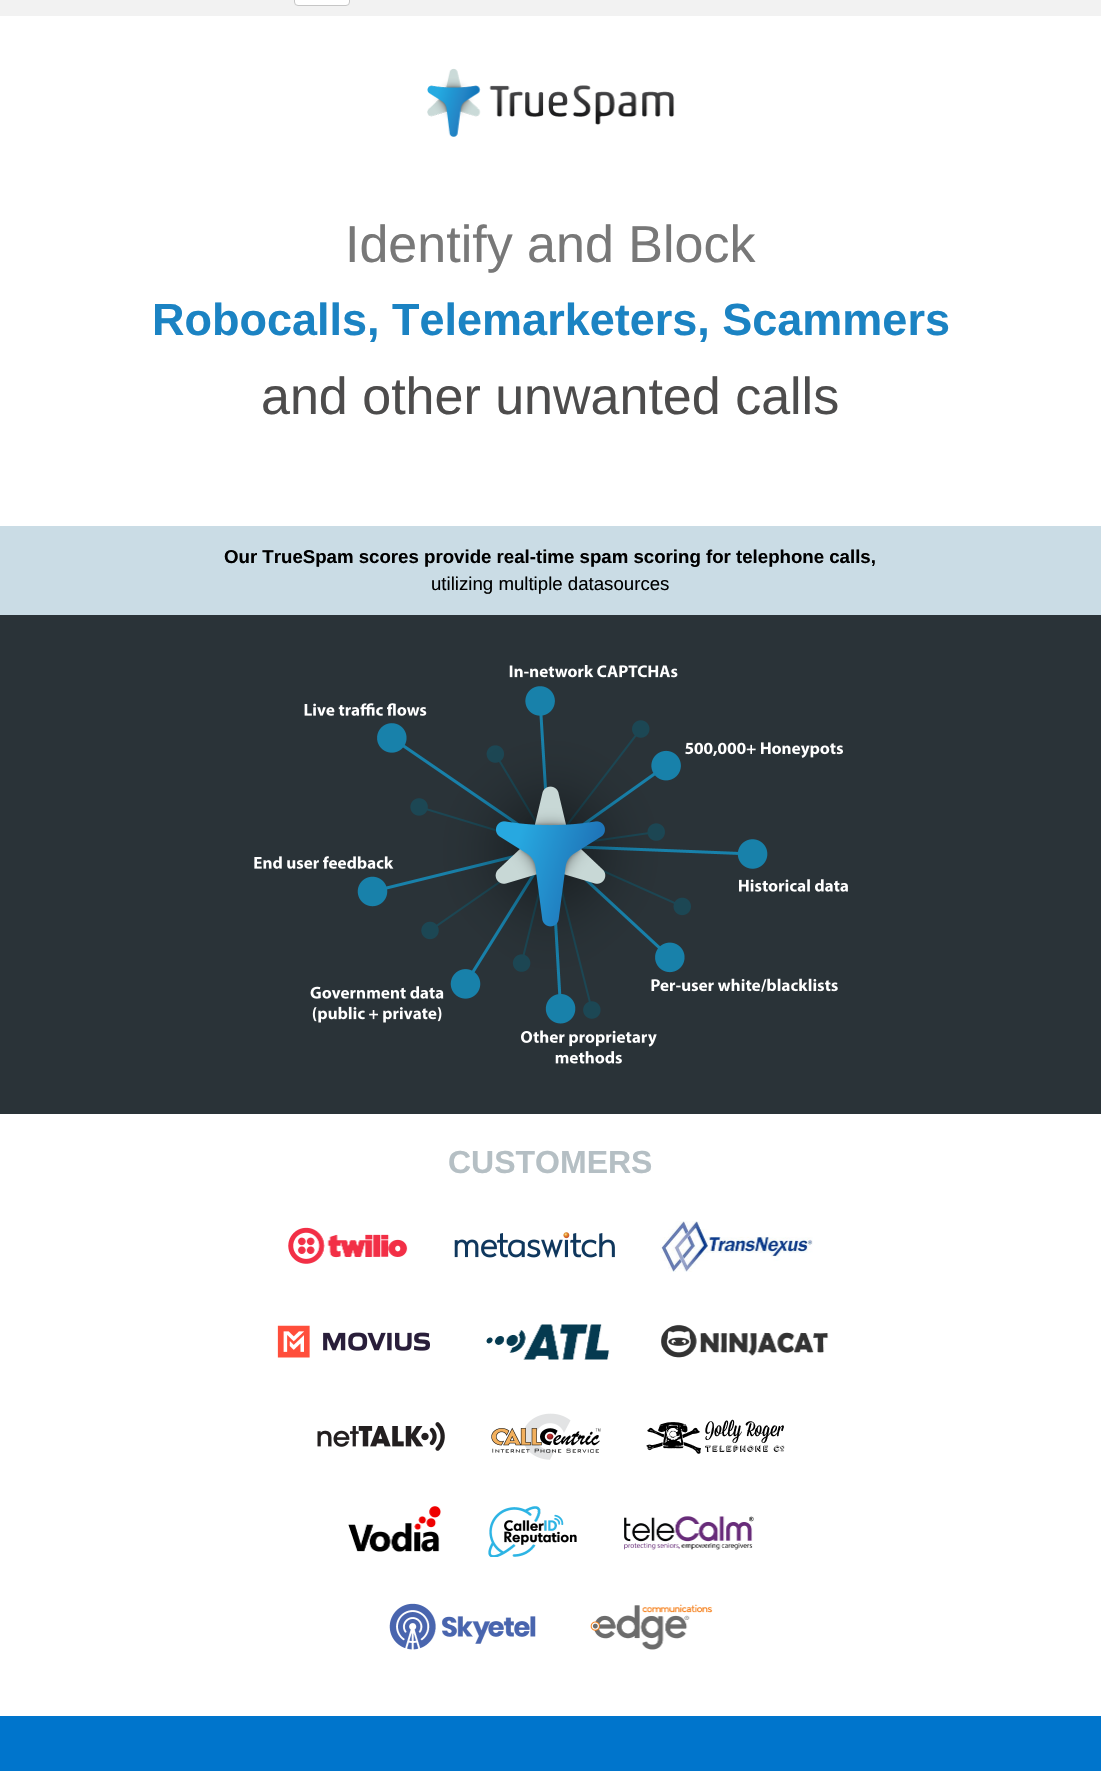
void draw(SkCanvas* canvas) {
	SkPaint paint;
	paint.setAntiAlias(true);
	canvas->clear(0xffffffff);
	paint.setColor(0xfff2f2f2);
	canvas->drawRect(SkRect::MakeXYWH(0, 0, 1101, 16), paint);
	paint.setColor(0xffffffff);
	canvas->drawRoundRect(SkRect::MakeXYWH(294.5, -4.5, 55, 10), 3.5, 3.5, paint);
	paint.setStroke(true);
	paint.setStrokeWidth(1);
	paint.setColor(0xffc6c6c6);
	canvas->drawRoundRect(SkRect::MakeXYWH(294.5, -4.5, 55, 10), 3.5, 3.5, paint);
	canvas->drawImageRect(SkImages::DeferredFromEncodedData(SkData::MakeFromFileName("img1.png")), SkRect::MakeXYWH(427, 68, 248, 69), SkSamplingOptions());
	SkFont f1(fontMgr->matchFamilyStyle("Liberation Sans", SkFontStyle::Normal()), 52);
	f1.setSubpixel(true);
	paint.setStroke(false);
	paint.setColor(0xff787878);
	canvas->drawString("Identify and Block", 345, 262, f1, paint);
	SkFont f2(fontMgr->matchFamilyStyle("Liberation Sans", SkFontStyle::Bold()), 45);
	f2.setSubpixel(true);
	paint.setColor(0xff1b83c3);
	canvas->drawString("Robocalls, Telemarketers, Scammers", 152, 335, f2, paint);
	paint.setColor(0xff4d4c4c);
	canvas->drawString("and other unwanted calls", 261, 414, f1, paint);
	paint.setColor(0xffcadce5);
	canvas->drawRect(SkRect::MakeXYWH(0, 526, 1101, 89), paint);
	SkFont f3(fontMgr->matchFamilyStyle("Liberation Sans", SkFontStyle::Bold()), 18.65);
	f3.setSubpixel(true);
	paint.setColor(0xff000000);
	canvas->drawString("Our TrueSpam scores provide real-time spam scoring for telephone calls,", 224, 563, f3, paint);
	SkFont f4(fontMgr->matchFamilyStyle("Liberation Sans", SkFontStyle::Normal()), 18.65);
	f4.setSubpixel(true);
	canvas->drawString("utilizing multiple datasources", 431, 590, f4, paint);
	paint.setColor(0xff2a3338);
	canvas->drawRect(SkRect::MakeXYWH(0, 615, 1101, 499), paint);
	canvas->drawImageRect(SkImages::DeferredFromEncodedData(SkData::MakeFromFileName("img2.png")), SkRect::MakeXYWH(254, 665, 594, 399), SkSamplingOptions());
	SkFont f5(fontMgr->matchFamilyStyle("Liberation Sans", SkFontStyle::Bold()), 32);
	f5.setSubpixel(true);
	paint.setColor(0xffb5bfc4);
	canvas->drawString("CUSTOMERS", 448, 1173, f5, paint);
	canvas->drawImageRect(SkImages::DeferredFromEncodedData(SkData::MakeFromFileName("img3.png")), SkRect::MakeXYWH(288, 1227, 120, 37), SkSamplingOptions());
	canvas->drawImageRect(SkImages::DeferredFromEncodedData(SkData::MakeFromFileName("img4.png")), SkRect::MakeXYWH(454, 1232, 161, 26), SkSamplingOptions());
	canvas->drawImageRect(SkImages::DeferredFromEncodedData(SkData::MakeFromFileName("img5.png")), SkRect::MakeXYWH(660, 1221, 153, 51), SkSamplingOptions());
	canvas->drawImageRect(SkImages::DeferredFromEncodedData(SkData::MakeFromFileName("img6.png")), SkRect::MakeXYWH(277, 1325, 153, 33), SkSamplingOptions());
	canvas->drawImageRect(SkImages::DeferredFromEncodedData(SkData::MakeFromFileName("img7.png")), SkRect::MakeXYWH(486, 1324, 124, 36), SkSamplingOptions());
	canvas->drawImageRect(SkImages::DeferredFromEncodedData(SkData::MakeFromFileName("img8.png")), SkRect::MakeXYWH(661, 1324, 168, 34), SkSamplingOptions());
	canvas->drawImageRect(SkImages::DeferredFromEncodedData(SkData::MakeFromFileName("img9.png")), SkRect::MakeXYWH(317, 1422, 128, 29), SkSamplingOptions());
	canvas->drawImageRect(SkImages::DeferredFromEncodedData(SkData::MakeFromFileName("img10.png")), SkRect::MakeXYWH(491, 1413, 110, 47), SkSamplingOptions());
	canvas->drawImageRect(SkImages::DeferredFromEncodedData(SkData::MakeFromFileName("img11.png")), SkRect::MakeXYWH(646, 1419, 139, 35), SkSamplingOptions());
	canvas->drawImageRect(SkImages::DeferredFromEncodedData(SkData::MakeFromFileName("img12.png")), SkRect::MakeXYWH(348, 1506, 93, 46), SkSamplingOptions());
	canvas->drawImageRect(SkImages::DeferredFromEncodedData(SkData::MakeFromFileName("img13.png")), SkRect::MakeXYWH(488, 1506, 89, 51), SkSamplingOptions());
	canvas->drawImageRect(SkImages::DeferredFromEncodedData(SkData::MakeFromFileName("img14.png")), SkRect::MakeXYWH(624, 1516, 130, 34), SkSamplingOptions());
	canvas->drawImageRect(SkImages::DeferredFromEncodedData(SkData::MakeFromFileName("img15.png")), SkRect::MakeXYWH(389, 1603, 147, 47), SkSamplingOptions());
	canvas->drawImageRect(SkImages::DeferredFromEncodedData(SkData::MakeFromFileName("img16.png")), SkRect::MakeXYWH(590, 1604, 123, 46), SkSamplingOptions());
	paint.setColor(0xff0075cc);
	canvas->drawRect(SkRect::MakeXYWH(0, 1716, 1101, 55), paint);
}
